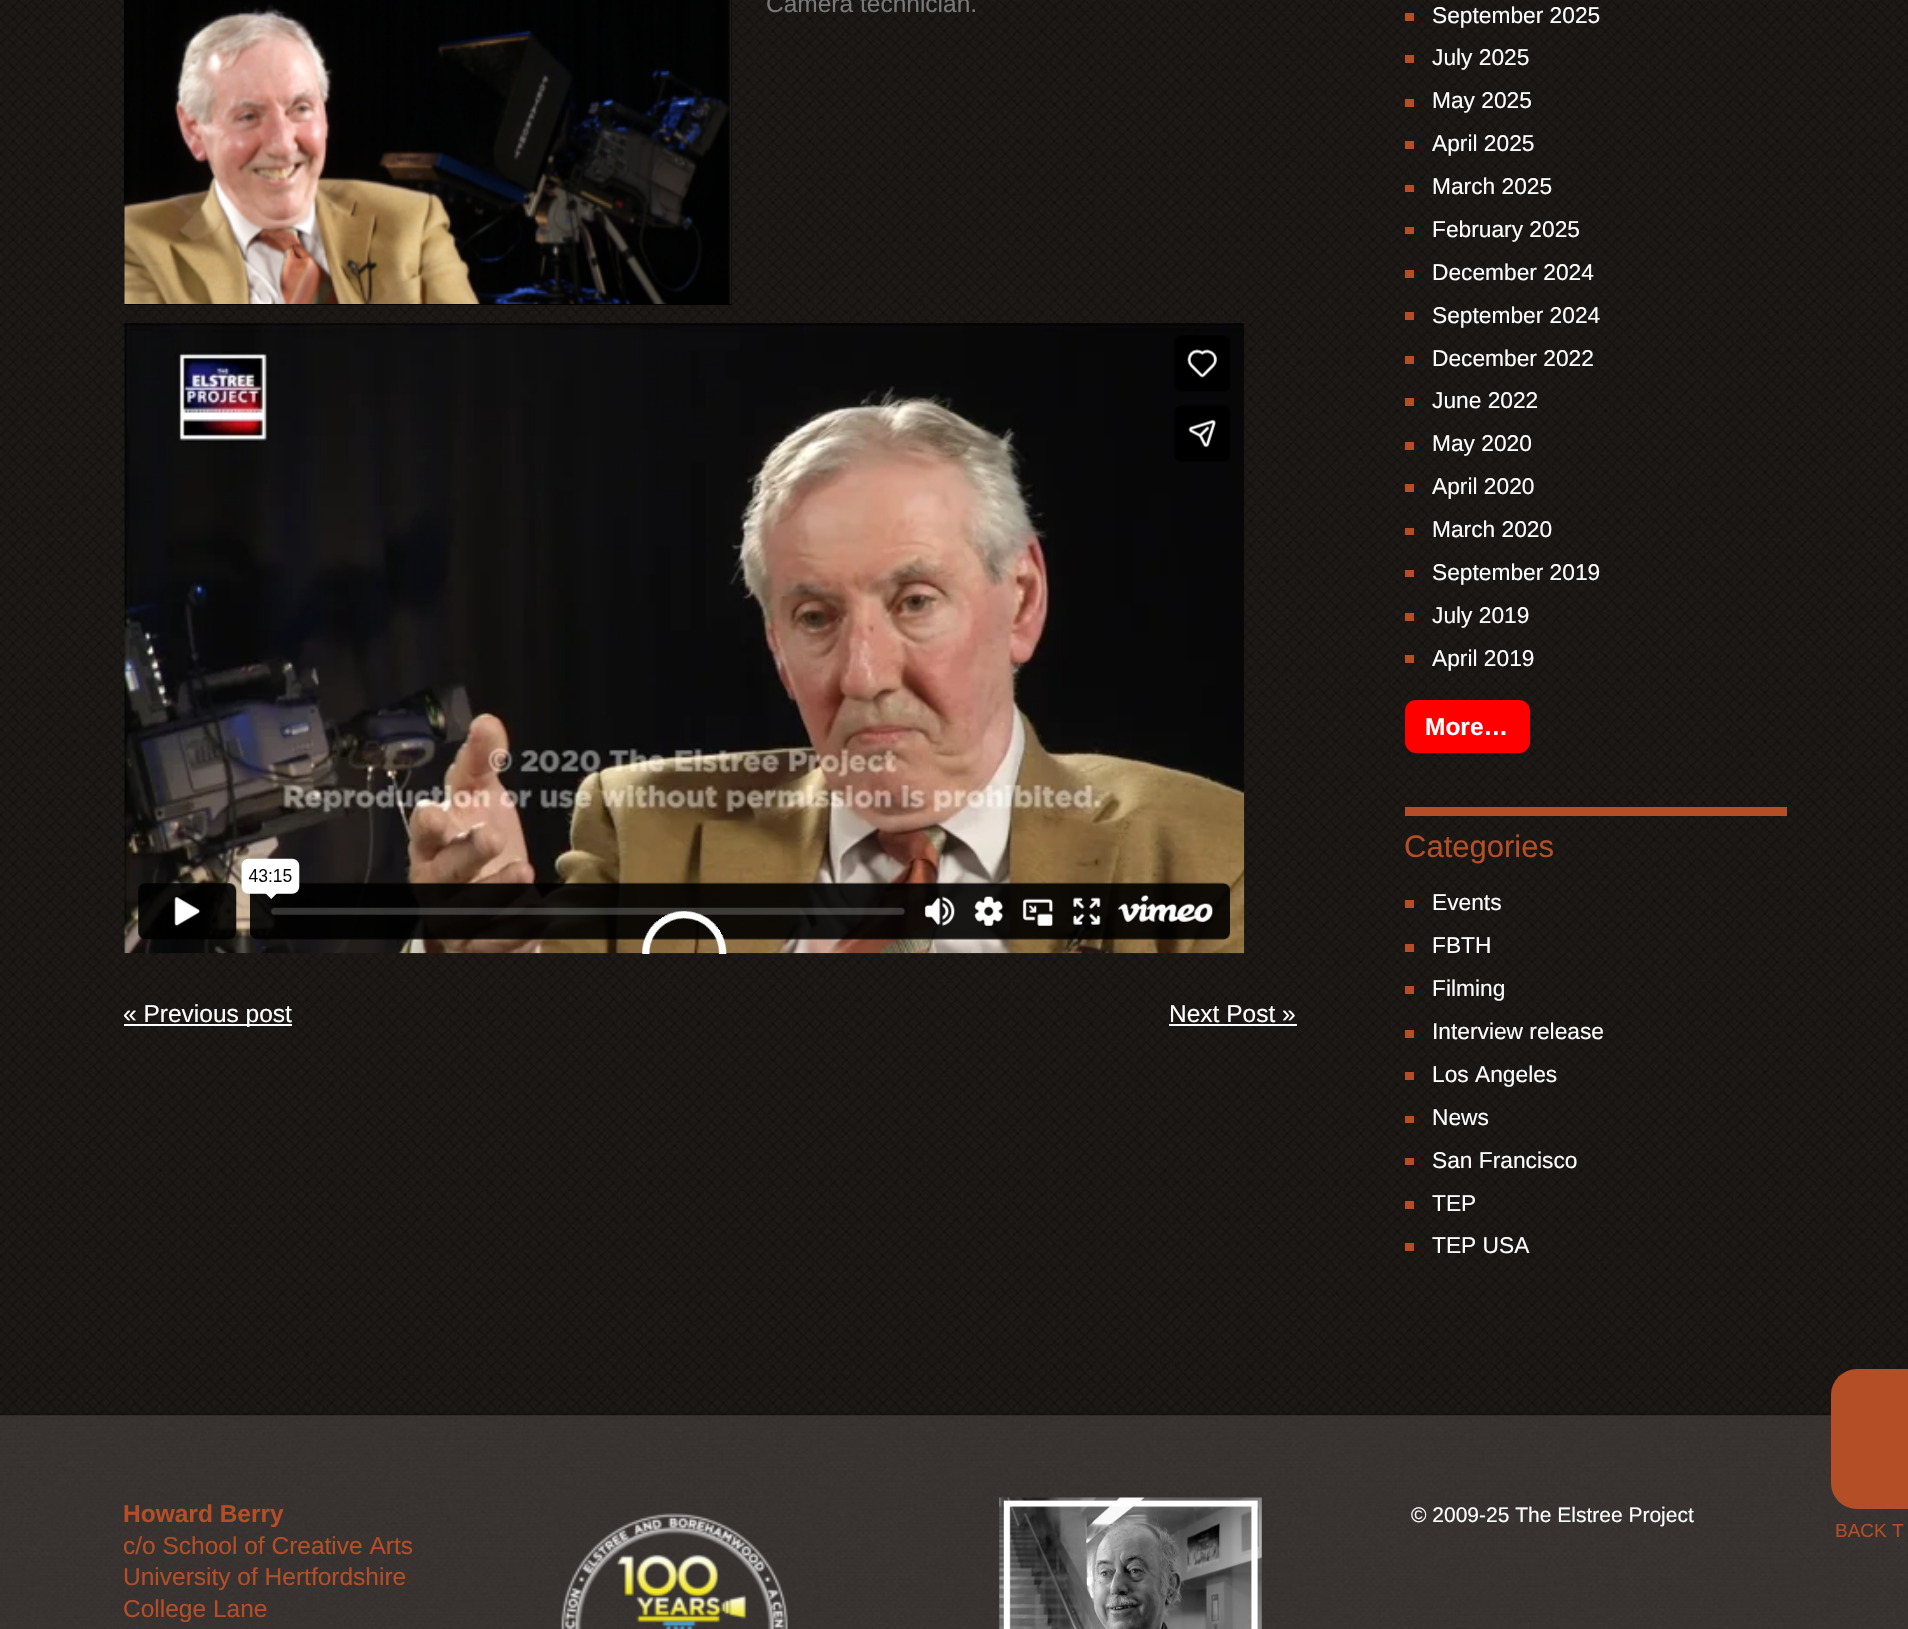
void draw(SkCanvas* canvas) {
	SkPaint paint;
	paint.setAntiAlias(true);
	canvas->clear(0xffffffff);
	canvas->drawImageRect(SkImages::DeferredFromEncodedData(SkData::MakeFromFileName("img1.png")), SkRect::MakeXYWH(0, 1415, 1908, 214), SkSamplingOptions());
	canvas->drawImageRect(SkImages::DeferredFromEncodedData(SkData::MakeFromFileName("img2.png")), SkRect::MakeXYWH(0, 0, 1908, 1416), SkSamplingOptions());
	canvas->drawImageRect(SkImages::DeferredFromEncodedData(SkData::MakeFromFileName("img3.png")), SkRect::MakeXYWH(0, 1413, 1831, 2), SkSamplingOptions());
	paint.setColor(0xff000000);
	canvas->drawRect(SkRect::MakeXYWH(124, 0, 608, 305), paint);
	canvas->drawImageRect(SkImages::DeferredFromEncodedData(SkData::MakeFromFileName("img4.png")), SkRect::MakeXYWH(124, 0, 608, 304), SkSamplingOptions());
	SkFont f1(fontMgr->matchFamilyStyle("Liberation Sans", SkFontStyle::Normal()), 24.5);
	f1.setSubpixel(true);
	paint.setColor(0xff787878);
	canvas->drawString("Camera technician.", 766, 12, f1, paint);
	canvas->drawImageRect(SkImages::DeferredFromEncodedData(SkData::MakeFromFileName("img5.png")), SkRect::MakeXYWH(124, 323, 1121, 631), SkSamplingOptions());
	paint.setColor(0xffffffff);
	canvas->drawRect(SkRect::MakeXYWH(124, 1024, 168, 2), paint);
	canvas->drawString("« Previous post", 123, 1022, f1, paint);
	canvas->drawString("Next Post »", 1169, 1022, f1, paint);
	canvas->drawRect(SkRect::MakeXYWH(1169, 1024, 128, 2), paint);
	paint.setColor(0xffb44e27);
	canvas->drawRect(SkRect::MakeXYWH(1405, 13, 9, 8), paint);
	SkFont f2(fontMgr->matchFamilyStyle("Liberation Sans", SkFontStyle::Normal()), 22.75);
	f2.setSubpixel(true);
	paint.setColor(0xffffffff);
	canvas->drawString("September 2025", 1432, 23, f2, paint);
	paint.setColor(0xffb44e27);
	canvas->drawRect(SkRect::MakeXYWH(1405, 55, 9, 8), paint);
	paint.setColor(0xffffffff);
	canvas->drawString("July 2025", 1432, 65, f2, paint);
	paint.setColor(0xffb44e27);
	canvas->drawRect(SkRect::MakeXYWH(1405, 99, 9, 8), paint);
	paint.setColor(0xffffffff);
	canvas->drawString("May 2025", 1432, 108, f2, paint);
	paint.setColor(0xffb44e27);
	canvas->drawRect(SkRect::MakeXYWH(1405, 141, 9, 8), paint);
	paint.setColor(0xffffffff);
	canvas->drawString("April 2025", 1432, 151, f2, paint);
	paint.setColor(0xffb44e27);
	canvas->drawRect(SkRect::MakeXYWH(1405, 185, 9, 7), paint);
	paint.setColor(0xffffffff);
	canvas->drawString("March 2025", 1432, 194, f2, paint);
	paint.setColor(0xffb44e27);
	canvas->drawRect(SkRect::MakeXYWH(1405, 227, 9, 7), paint);
	paint.setColor(0xffffffff);
	canvas->drawString("February 2025", 1432, 237, f2, paint);
	paint.setColor(0xffb44e27);
	canvas->drawRect(SkRect::MakeXYWH(1405, 270, 9, 8), paint);
	paint.setColor(0xffffffff);
	canvas->drawString("December 2024", 1432, 280, f2, paint);
	paint.setColor(0xffb44e27);
	canvas->drawRect(SkRect::MakeXYWH(1405, 312, 9, 8), paint);
	paint.setColor(0xffffffff);
	canvas->drawString("September 2024", 1432, 323, f2, paint);
	paint.setColor(0xffb44e27);
	canvas->drawRect(SkRect::MakeXYWH(1405, 356, 9, 8), paint);
	paint.setColor(0xffffffff);
	canvas->drawString("December 2022", 1432, 366, f2, paint);
	paint.setColor(0xffb44e27);
	canvas->drawRect(SkRect::MakeXYWH(1405, 398, 9, 8), paint);
	paint.setColor(0xffffffff);
	canvas->drawString("June 2022", 1432, 408, f2, paint);
	paint.setColor(0xffb44e27);
	canvas->drawRect(SkRect::MakeXYWH(1405, 442, 9, 8), paint);
	paint.setColor(0xffffffff);
	canvas->drawString("May 2020", 1432, 451, f2, paint);
	paint.setColor(0xffb44e27);
	canvas->drawRect(SkRect::MakeXYWH(1405, 484, 9, 8), paint);
	paint.setColor(0xffffffff);
	canvas->drawString("April 2020", 1432, 494, f2, paint);
	paint.setColor(0xffb44e27);
	canvas->drawRect(SkRect::MakeXYWH(1405, 528, 9, 7), paint);
	paint.setColor(0xffffffff);
	canvas->drawString("March 2020", 1432, 537, f2, paint);
	paint.setColor(0xffb44e27);
	canvas->drawRect(SkRect::MakeXYWH(1405, 570, 9, 7), paint);
	paint.setColor(0xffffffff);
	canvas->drawString("September 2019", 1432, 580, f2, paint);
	paint.setColor(0xffb44e27);
	canvas->drawRect(SkRect::MakeXYWH(1405, 613, 9, 8), paint);
	paint.setColor(0xffffffff);
	canvas->drawString("July 2019", 1432, 623, f2, paint);
	paint.setColor(0xffb44e27);
	canvas->drawRect(SkRect::MakeXYWH(1405, 655, 9, 8), paint);
	paint.setColor(0xffffffff);
	canvas->drawString("April 2019", 1432, 666, f2, paint);
	paint.setColor(0xffff0000);
	canvas->drawRoundRect(SkRect::MakeXYWH(1405, 700, 125, 53), 11, 11, paint);
	SkFont f3(fontMgr->matchFamilyStyle("Liberation Sans", SkFontStyle::Bold()), 24.5);
	f3.setSubpixel(true);
	paint.setColor(0xffffffff);
	canvas->drawString("More…", 1425, 735, f3, paint);
	paint.setColor(0xffb44e27);
	canvas->drawRect(SkRect::MakeXYWH(1405, 807, 382, 9), paint);
	SkFont f4(fontMgr->matchFamilyStyle("Liberation Sans", SkFontStyle::Normal()), 31);
	f4.setSubpixel(true);
	canvas->drawString("Categories", 1404, 857, f4, paint);
	canvas->drawRect(SkRect::MakeXYWH(1405, 900, 9, 8), paint);
	paint.setColor(0xffffffff);
	canvas->drawString("Events", 1432, 910, f2, paint);
	paint.setColor(0xffb44e27);
	canvas->drawRect(SkRect::MakeXYWH(1405, 944, 9, 8), paint);
	paint.setColor(0xffffffff);
	canvas->drawString("FBTH", 1432, 953, f2, paint);
	paint.setColor(0xffb44e27);
	canvas->drawRect(SkRect::MakeXYWH(1405, 986, 9, 8), paint);
	paint.setColor(0xffffffff);
	canvas->drawString("Filming", 1432, 996, f2, paint);
	paint.setColor(0xffb44e27);
	canvas->drawRect(SkRect::MakeXYWH(1405, 1030, 9, 8), paint);
	paint.setColor(0xffffffff);
	canvas->drawString("Interview release", 1432, 1039, f2, paint);
	paint.setColor(0xffb44e27);
	canvas->drawRect(SkRect::MakeXYWH(1405, 1072, 9, 8), paint);
	paint.setColor(0xffffffff);
	canvas->drawString("Los Angeles", 1432, 1082, f2, paint);
	paint.setColor(0xffb44e27);
	canvas->drawRect(SkRect::MakeXYWH(1405, 1116, 9, 7), paint);
	paint.setColor(0xffffffff);
	canvas->drawString("News", 1432, 1125, f2, paint);
	paint.setColor(0xffb44e27);
	canvas->drawRect(SkRect::MakeXYWH(1405, 1158, 9, 7), paint);
	paint.setColor(0xffffffff);
	canvas->drawString("San Francisco", 1432, 1168, f2, paint);
	paint.setColor(0xffb44e27);
	canvas->drawRect(SkRect::MakeXYWH(1405, 1201, 9, 8), paint);
	paint.setColor(0xffffffff);
	canvas->drawString("TEP", 1432, 1211, f2, paint);
	paint.setColor(0xffb44e27);
	canvas->drawRect(SkRect::MakeXYWH(1405, 1243, 9, 8), paint);
	paint.setColor(0xffffffff);
	canvas->drawString("TEP USA", 1432, 1253, f2, paint);
	paint.setColor(0xffb44e27);
	canvas->drawString("Howard Berry", 123, 1522, f3, paint);
	canvas->drawString("c/o School of Creative Arts", 123, 1554, f1, paint);
	canvas->drawString("University of Hertfordshire", 123, 1585, f1, paint);
	canvas->drawString("College Lane", 123, 1617, f1, paint);
	canvas->drawImageRect(SkImages::DeferredFromEncodedData(SkData::MakeFromFileName("img6.png")), SkRect::MakeXYWH(560, 1513, 228, 116), SkSamplingOptions());
	canvas->drawImageRect(SkImages::DeferredFromEncodedData(SkData::MakeFromFileName("img7.png")), SkRect::MakeXYWH(999, 1497, 263, 132), SkSamplingOptions());
	SkFont f5(fontMgr->matchFamilyStyle("Liberation Sans", SkFontStyle::Normal()), 21);
	f5.setSubpixel(true);
	paint.setColor(0xffffffff);
	canvas->drawString("© 2009-25 The Elstree Project", 1411, 1522, f5, paint);
	paint.setColor(0xffb44e27);
	canvas->drawRoundRect(SkRect::MakeXYWH(1831, 1369, 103, 140), 26, 26, paint);
	SkFont f6(fontMgr->matchFamilyStyle("Liberation Sans", SkFontStyle::Normal()), 19);
	f6.setSubpixel(true);
	canvas->drawString("BACK T", 1835, 1537, f6, paint);
}
